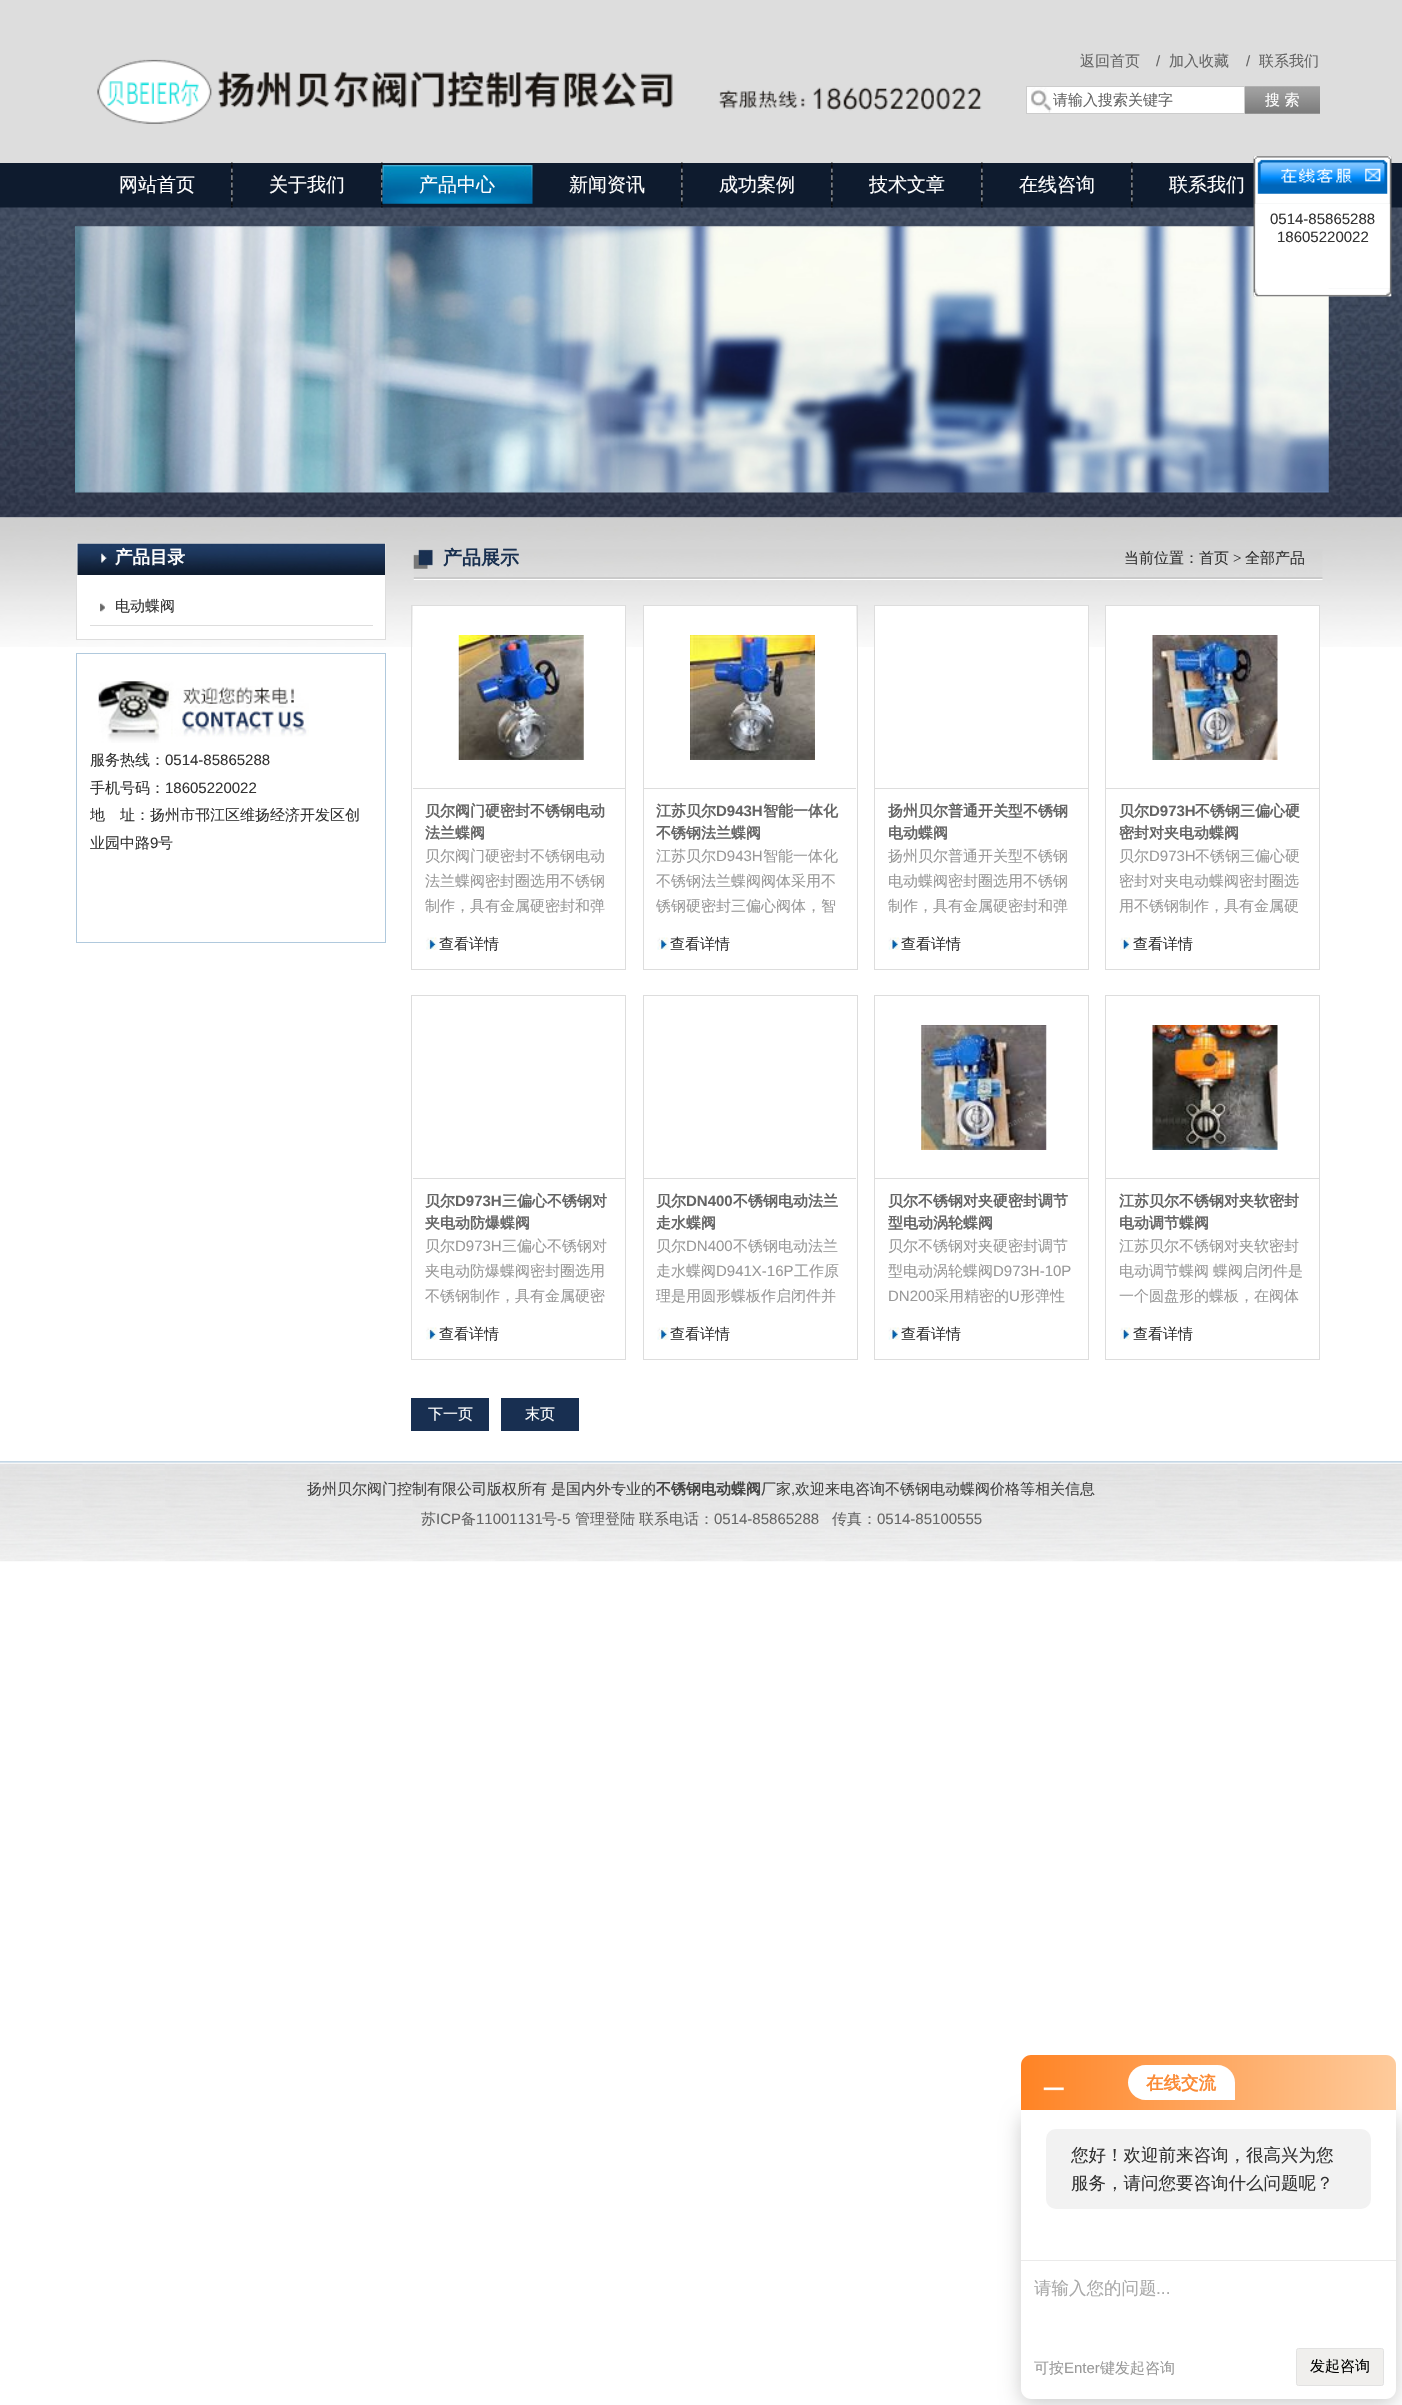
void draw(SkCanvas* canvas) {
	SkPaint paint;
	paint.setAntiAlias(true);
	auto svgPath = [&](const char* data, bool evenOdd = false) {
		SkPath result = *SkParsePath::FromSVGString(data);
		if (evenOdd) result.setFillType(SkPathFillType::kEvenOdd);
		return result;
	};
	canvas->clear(0xffffffff);
	paint.setColor(0xffdddddd);
	canvas->drawRect(SkRect::MakeXYWH(0, 0, 1402, 163), paint);
	canvas->drawImageRect(SkImages::DeferredFromEncodedData(SkData::MakeFromFileName("img1.png")), SkRect::MakeXYWH(97, 59, 885, 65), SkSamplingOptions());
	SkFont f1(fontMgr->matchFamilyStyle("WenQuanYi Zen Hei", SkFontStyle(500, SkFontStyle::kNormal_Width, SkFontStyle::kUpright_Slant)), 15);
	f1.setSubpixel(true);
	paint.setColor(0xff666666);
	canvas->drawString("返回首页", 1080, 66, f1, paint);
	SkFont f2(fontMgr->matchFamilyStyle("Liberation Sans", SkFontStyle::Normal()), 15);
	f2.setSubpixel(true);
	canvas->drawString("/", 1156, 66, f2, paint);
	canvas->drawString("加入收藏", 1169, 66, f1, paint);
	canvas->drawString("/", 1246, 66, f2, paint);
	canvas->drawString("联系我们", 1259, 66, f1, paint);
	paint.setColor(0xffffffff);
	canvas->drawRect(SkRect::MakeXYWH(1027, 87, 217, 26), paint);
	canvas->drawImageRect(SkImages::DeferredFromEncodedData(SkData::MakeFromFileName("img2.png")), SkRect::MakeXYWH(1031, 87, 21, 26), SkSamplingOptions());
	paint.setStroke(true);
	paint.setStrokeWidth(1);
	paint.setColor(0xffcccccc);
	canvas->drawRect(SkRect::MakeXYWH(1026.5, 86.5, 218, 27), paint);
	paint.setStroke(false);
	paint.setColor(0xff666666);
	canvas->drawString("请输入搜索关键字", 1053, 105, f1, paint);
	canvas->drawImageRect(SkImages::DeferredFromEncodedData(SkData::MakeFromFileName("img3.png")), SkRect::MakeXYWH(1245, 86, 75, 28), SkSamplingOptions());
	paint.setColor(0xffffffff);
	canvas->drawString("搜 索", 1265, 105, f1, paint);
	paint.setColor(0xff0e1b2e);
	canvas->drawRect(SkRect::MakeXYWH(0, 163, 1402, 45), paint);
	canvas->drawImageRect(SkImages::DeferredFromEncodedData(SkData::MakeFromFileName("img12.png")), SkRect::MakeXYWH(0, 207, 1402, 311), SkSamplingOptions());
	canvas->drawImageRect(SkImages::DeferredFromEncodedData(SkData::MakeFromFileName("img4.png")), SkRect::MakeXYWH(231, 162, 2, 46), SkSamplingOptions());
	SkFont f3(fontMgr->matchFamilyStyle("WenQuanYi Zen Hei", SkFontStyle(500, SkFontStyle::kNormal_Width, SkFontStyle::kUpright_Slant)), 19);
	f3.setSubpixel(true);
	paint.setColor(0xffffffff);
	canvas->drawString("网站首页", 119, 191, f3, paint);
	canvas->drawImageRect(SkImages::DeferredFromEncodedData(SkData::MakeFromFileName("img5.png")), SkRect::MakeXYWH(381, 162, 2, 46), SkSamplingOptions());
	canvas->drawString("关于我们", 269, 191, f3, paint);
	canvas->drawImageRect(SkImages::DeferredFromEncodedData(SkData::MakeFromFileName("img6.png")), SkRect::MakeXYWH(382, 165, 151, 39), SkSamplingOptions());
	canvas->drawString("产品中心", 419, 191, f3, paint);
	canvas->drawImageRect(SkImages::DeferredFromEncodedData(SkData::MakeFromFileName("img7.png")), SkRect::MakeXYWH(681, 162, 2, 46), SkSamplingOptions());
	canvas->drawString("新闻资讯", 569, 191, f3, paint);
	canvas->drawImageRect(SkImages::DeferredFromEncodedData(SkData::MakeFromFileName("img8.png")), SkRect::MakeXYWH(831, 162, 2, 46), SkSamplingOptions());
	canvas->drawString("成功案例", 719, 191, f3, paint);
	canvas->drawImageRect(SkImages::DeferredFromEncodedData(SkData::MakeFromFileName("img9.png")), SkRect::MakeXYWH(981, 162, 2, 46), SkSamplingOptions());
	canvas->drawString("技术文章", 869, 191, f3, paint);
	canvas->drawImageRect(SkImages::DeferredFromEncodedData(SkData::MakeFromFileName("img10.png")), SkRect::MakeXYWH(1131, 162, 2, 46), SkSamplingOptions());
	canvas->drawString("在线咨询", 1019, 191, f3, paint);
	canvas->drawImageRect(SkImages::DeferredFromEncodedData(SkData::MakeFromFileName("img11.png")), SkRect::MakeXYWH(1281, 203, 2, 1), SkSamplingOptions());
	canvas->drawString("联系我们", 1169, 191, f3, paint);
	canvas->drawImageRect(SkImages::DeferredFromEncodedData(SkData::MakeFromFileName("img13.png")), SkRect::MakeXYWH(75, 226, 1254, 267), SkSamplingOptions());
	canvas->drawImageRect(SkImages::DeferredFromEncodedData(SkData::MakeFromFileName("img14.png")), SkRect::MakeXYWH(1253, 156, 139, 48), SkSamplingOptions());
	canvas->drawImageRect(SkImages::DeferredFromEncodedData(SkData::MakeFromFileName("img16.png")), SkRect::MakeXYWH(1253, 203, 139, 86), SkSamplingOptions());
	canvas->drawImageRect(SkImages::DeferredFromEncodedData(SkData::MakeFromFileName("img15.png")), SkRect::MakeXYWH(1253, 156, 139, 48), SkSamplingOptions());
	paint.setColor(0xff333333);
	canvas->drawString("0514-85865288", 1270, 224, f2, paint);
	canvas->drawString("18605220022", 1277, 242, f2, paint);
	canvas->drawImageRect(SkImages::DeferredFromEncodedData(SkData::MakeFromFileName("img17.png")), SkRect::MakeXYWH(1253, 288, 139, 9), SkSamplingOptions());
	canvas->drawImageRect(SkImages::DeferredFromEncodedData(SkData::MakeFromFileName("img18.png")), SkRect::MakeXYWH(1253, 288, 139, 9), SkSamplingOptions());
	canvas->drawImageRect(SkImages::DeferredFromEncodedData(SkData::MakeFromFileName("img19.png")), SkRect::MakeXYWH(0, 517, 1402, 130), SkSamplingOptions());
	paint.setColor(0xffffffff);
	canvas->drawRect(SkRect::MakeXYWH(76.5, 543.5, 309, 96), paint);
	paint.setStroke(true);
	paint.setColor(0xffdddddd);
	canvas->drawRect(SkRect::MakeXYWH(76.5, 543.5, 309, 96), paint);
	canvas->drawImageRect(SkImages::DeferredFromEncodedData(SkData::MakeFromFileName("img20.png")), SkRect::MakeXYWH(77, 543, 308, 32), SkSamplingOptions());
	SkFont f4(fontMgr->matchFamilyStyle("WenQuanYi Zen Hei", SkFontStyle::Bold()), 17.5);
	f4.setSubpixel(true);
	paint.setStroke(false);
	paint.setColor(0xffffffff);
	canvas->drawString("产品目录", 115, 563, f4, paint);
	paint.setColor(0xffdddddd);
	canvas->drawRect(SkRect::MakeXYWH(90, 625, 283, 1), paint);
	canvas->drawImageRect(SkImages::DeferredFromEncodedData(SkData::MakeFromFileName("img21.png")), SkRect::MakeXYWH(100, 603, 5, 9), SkSamplingOptions());
	paint.setColor(0xff333333);
	canvas->drawString("电动蝶阀", 115, 611, f1, paint);
	paint.setStroke(true);
	paint.setColor(0xffb0c9dd);
	canvas->drawRect(SkRect::MakeXYWH(76.5, 653.5, 309, 289), paint);
	canvas->drawImageRect(SkImages::DeferredFromEncodedData(SkData::MakeFromFileName("img22.png")), SkRect::MakeXYWH(98, 681, 211, 62), SkSamplingOptions());
	paint.setStroke(false);
	paint.setColor(0xff333333);
	canvas->drawString("服务热线：", 90, 765, f1, paint);
	canvas->drawString("0514-85865288", 165, 765, f2, paint);
	canvas->drawString("手机号码：", 90, 793, f1, paint);
	canvas->drawString("18605220022", 165, 793, f2, paint);
	canvas->drawString("地　址：扬州市邗江区维扬经济开发区创", 90, 820, f1, paint);
	canvas->drawString("业园中路", 90, 848, f1, paint);
	canvas->drawString("9", 150, 848, f2, paint);
	canvas->drawString("号", 158, 848, f1, paint);
	canvas->drawImageRect(SkImages::DeferredFromEncodedData(SkData::MakeFromFileName("img23.png")), SkRect::MakeXYWH(413, 549, 910, 31), SkSamplingOptions());
	SkFont f5(fontMgr->matchFamilyStyle("WenQuanYi Zen Hei", SkFontStyle::Bold()), 19);
	f5.setSubpixel(true);
	paint.setColor(0xff193050);
	canvas->drawString("产品展示", 443, 564, f5, paint);
	paint.setColor(0xff333333);
	canvas->drawString("当前位置：首页", 1124, 563, f1, paint);
	SkFont f6(fontMgr->matchFamilyStyle("Liberation Serif", SkFontStyle::Normal()), 15);
	f6.setSubpixel(true);
	canvas->drawString(">", 1233, 563, f6, paint);
	canvas->drawString("全部产品", 1245, 563, f1, paint);
	paint.setStroke(true);
	paint.setColor(0xffdddddd);
	canvas->drawRect(SkRect::MakeXYWH(411.5, 605.5, 214, 364), paint);
	paint.setStroke(false);
	paint.setColor(0xffffffff);
	canvas->drawRect(SkRect::MakeXYWH(413, 606, 212, 41), paint);
	paint.setColor(0xffdddddd);
	canvas->drawRect(SkRect::MakeXYWH(413, 788, 212, 1), paint);
	canvas->drawImageRect(SkImages::DeferredFromEncodedData(SkData::MakeFromFileName("img24.png")), SkRect::MakeXYWH(458, 635, 126, 125), SkSamplingOptions());
	SkFont f7(fontMgr->matchFamilyStyle("WenQuanYi Zen Hei", SkFontStyle::Bold()), 15);
	f7.setSubpixel(true);
	paint.setColor(0xff666666);
	canvas->drawString("贝尔阀门硬密封不锈钢电动", 425, 816, f7, paint);
	canvas->drawString("法兰蝶阀", 425, 838, f7, paint);
	paint.setColor(0xff999999);
	canvas->drawString("贝尔阀门硬密封不锈钢电动", 425, 861, f1, paint);
	canvas->drawString("法兰蝶阀密封圈选用不锈钢", 425, 886, f1, paint);
	canvas->drawString("制作，具有金属硬密封和弹", 425, 911, f1, paint);
	canvas->drawImageRect(SkImages::DeferredFromEncodedData(SkData::MakeFromFileName("img25.png")), SkRect::MakeXYWH(426, 937, 12, 13), SkSamplingOptions());
	paint.setColor(0xff333333);
	canvas->drawString("查看详情", 439, 949, f1, paint);
	paint.setStroke(true);
	paint.setColor(0xffdddddd);
	canvas->drawRect(SkRect::MakeXYWH(643.5, 605.5, 214, 364), paint);
	paint.setStroke(false);
	paint.setColor(0xffffffff);
	canvas->drawRect(SkRect::MakeXYWH(644, 606, 212, 41), paint);
	paint.setColor(0xffdddddd);
	canvas->drawRect(SkRect::MakeXYWH(644, 788, 212, 1), paint);
	canvas->drawImageRect(SkImages::DeferredFromEncodedData(SkData::MakeFromFileName("img26.png")), SkRect::MakeXYWH(690, 635, 125, 125), SkSamplingOptions());
	paint.setColor(0xff666666);
	canvas->drawString("江苏贝尔", 656, 816, f7, paint);
	SkFont f8(fontMgr->matchFamilyStyle("Liberation Sans", SkFontStyle::Bold()), 15);
	f8.setSubpixel(true);
	canvas->drawString("D943H", 716, 816, f8, paint);
	canvas->drawString("智能一体化", 763, 816, f7, paint);
	canvas->drawString("不锈钢法兰蝶阀", 656, 838, f7, paint);
	paint.setColor(0xff999999);
	canvas->drawString("江苏贝尔", 656, 861, f1, paint);
	canvas->drawString("D943H", 716, 861, f2, paint);
	canvas->drawString("智能一体化", 763, 861, f1, paint);
	canvas->drawString("不锈钢法兰蝶阀阀体采用不", 656, 886, f1, paint);
	canvas->drawString("锈钢硬密封三偏心阀体，智", 656, 911, f1, paint);
	canvas->drawImageRect(SkImages::DeferredFromEncodedData(SkData::MakeFromFileName("img27.png")), SkRect::MakeXYWH(657, 937, 12, 13), SkSamplingOptions());
	paint.setColor(0xff333333);
	canvas->drawString("查看详情", 670, 949, f1, paint);
	paint.setStroke(true);
	paint.setColor(0xffdddddd);
	canvas->drawRect(SkRect::MakeXYWH(874.5, 605.5, 214, 364), paint);
	paint.setStroke(false);
	paint.setColor(0xffffffff);
	canvas->drawRect(SkRect::MakeXYWH(875, 606, 213, 41), paint);
	paint.setColor(0xffdddddd);
	canvas->drawRect(SkRect::MakeXYWH(875, 788, 213, 1), paint);
	paint.setColor(0xff666666);
	canvas->drawString("扬州贝尔普通开关型不锈钢", 888, 816, f7, paint);
	canvas->drawString("电动蝶阀", 888, 838, f7, paint);
	canvas->save();
	canvas->clipRect(SkRect::MakeXYWH(888, 844, 187, 75));
	paint.setColor(0xff999999);
	canvas->drawString("扬州贝尔普通开关型不锈钢", 888, 861, f1, paint);
	canvas->restore();
	canvas->drawString("电动蝶阀密封圈选用不锈钢", 888, 886, f1, paint);
	canvas->drawString("制作，具有金属硬密封和弹", 888, 911, f1, paint);
	canvas->drawImageRect(SkImages::DeferredFromEncodedData(SkData::MakeFromFileName("img28.png")), SkRect::MakeXYWH(888, 937, 12, 13), SkSamplingOptions());
	paint.setColor(0xff333333);
	canvas->drawString("查看详情", 901, 949, f1, paint);
	paint.setStroke(true);
	paint.setColor(0xffdddddd);
	canvas->drawRect(SkRect::MakeXYWH(1105.5, 605.5, 214, 364), paint);
	paint.setStroke(false);
	paint.setColor(0xffffffff);
	canvas->drawRect(SkRect::MakeXYWH(1106, 606, 213, 41), paint);
	paint.setColor(0xffdddddd);
	canvas->drawRect(SkRect::MakeXYWH(1106, 788, 213, 1), paint);
	canvas->drawImageRect(SkImages::DeferredFromEncodedData(SkData::MakeFromFileName("img29.png")), SkRect::MakeXYWH(1152, 635, 126, 125), SkSamplingOptions());
	paint.setColor(0xff666666);
	canvas->drawString("贝尔", 1119, 816, f7, paint);
	canvas->drawString("D973H", 1149, 816, f8, paint);
	canvas->drawString("不锈钢三偏心硬", 1195, 816, f7, paint);
	canvas->drawString("密封对夹电动蝶阀", 1119, 838, f7, paint);
	paint.setColor(0xff999999);
	canvas->drawString("贝尔", 1119, 861, f1, paint);
	canvas->drawString("D973H", 1149, 861, f2, paint);
	canvas->drawString("不锈钢三偏心硬", 1195, 861, f1, paint);
	canvas->drawString("密封对夹电动蝶阀密封圈选", 1119, 886, f1, paint);
	canvas->drawString("用不锈钢制作，具有金属硬", 1119, 911, f1, paint);
	canvas->drawImageRect(SkImages::DeferredFromEncodedData(SkData::MakeFromFileName("img30.png")), SkRect::MakeXYWH(1120, 937, 11, 13), SkSamplingOptions());
	paint.setColor(0xff333333);
	canvas->drawString("查看详情", 1133, 949, f1, paint);
	paint.setStroke(true);
	paint.setColor(0xffdddddd);
	canvas->drawRect(SkRect::MakeXYWH(411.5, 995.5, 214, 364), paint);
	paint.setStroke(false);
	canvas->drawRect(SkRect::MakeXYWH(413, 1178, 212, 1), paint);
	paint.setColor(0xff666666);
	canvas->drawString("贝尔", 425, 1206, f7, paint);
	canvas->drawString("D973H", 455, 1206, f8, paint);
	canvas->drawString("三偏心不锈钢对", 502, 1206, f7, paint);
	canvas->drawString("夹电动防爆蝶阀", 425, 1228, f7, paint);
	paint.setColor(0xff999999);
	canvas->drawString("贝尔", 425, 1251, f1, paint);
	canvas->drawString("D973H", 455, 1251, f2, paint);
	canvas->drawString("三偏心不锈钢对", 502, 1251, f1, paint);
	canvas->drawString("夹电动防爆蝶阀密封圈选用", 425, 1276, f1, paint);
	canvas->drawString("不锈钢制作，具有金属硬密", 425, 1301, f1, paint);
	canvas->drawImageRect(SkImages::DeferredFromEncodedData(SkData::MakeFromFileName("img25.png")), SkRect::MakeXYWH(426, 1327, 12, 13), SkSamplingOptions());
	paint.setColor(0xff333333);
	canvas->drawString("查看详情", 439, 1339, f1, paint);
	paint.setStroke(true);
	paint.setColor(0xffdddddd);
	canvas->drawRect(SkRect::MakeXYWH(643.5, 995.5, 214, 364), paint);
	paint.setStroke(false);
	canvas->drawRect(SkRect::MakeXYWH(644, 1178, 212, 1), paint);
	paint.setColor(0xff666666);
	canvas->drawString("贝尔", 656, 1206, f7, paint);
	canvas->drawString("DN400", 686, 1206, f8, paint);
	canvas->drawString("不锈钢电动法兰", 733, 1206, f7, paint);
	canvas->drawString("走水蝶阀", 656, 1228, f7, paint);
	paint.setColor(0xff999999);
	canvas->drawString("贝尔", 656, 1251, f1, paint);
	canvas->drawString("DN400", 686, 1251, f2, paint);
	canvas->drawString("不锈钢电动法兰", 733, 1251, f1, paint);
	canvas->drawString("走水蝶阀", 656, 1276, f1, paint);
	canvas->drawString("D941X-16P", 716, 1276, f2, paint);
	canvas->drawString("工作原", 794, 1276, f1, paint);
	canvas->drawString("理是用圆形蝶板作启闭件并", 656, 1301, f1, paint);
	canvas->drawImageRect(SkImages::DeferredFromEncodedData(SkData::MakeFromFileName("img27.png")), SkRect::MakeXYWH(657, 1327, 12, 13), SkSamplingOptions());
	paint.setColor(0xff333333);
	canvas->drawString("查看详情", 670, 1339, f1, paint);
	paint.setStroke(true);
	paint.setColor(0xffdddddd);
	canvas->drawRect(SkRect::MakeXYWH(874.5, 995.5, 214, 364), paint);
	paint.setStroke(false);
	canvas->drawRect(SkRect::MakeXYWH(875, 1178, 213, 1), paint);
	canvas->drawImageRect(SkImages::DeferredFromEncodedData(SkData::MakeFromFileName("img31.png")), SkRect::MakeXYWH(921, 1025, 126, 125), SkSamplingOptions());
	paint.setColor(0xff666666);
	canvas->drawString("贝尔不锈钢对夹硬密封调节", 888, 1206, f7, paint);
	canvas->drawString("型电动涡轮蝶阀", 888, 1228, f7, paint);
	paint.setColor(0xff999999);
	canvas->drawString("贝尔不锈钢对夹硬密封调节", 888, 1251, f1, paint);
	canvas->save();
	canvas->clipRect(SkRect::MakeXYWH(888, 1234, 187, 75));
	canvas->drawString("型电动涡轮蝶阀", 888, 1276, f1, paint);
	canvas->restore();
	canvas->drawString("D973H-10P", 993, 1276, f2, paint);
	canvas->drawString("DN200", 888, 1301, f2, paint);
	canvas->drawString("采用精密的", 934, 1301, f1, paint);
	canvas->drawString("U", 1009, 1301, f2, paint);
	canvas->drawString("形弹性", 1020, 1301, f1, paint);
	canvas->drawImageRect(SkImages::DeferredFromEncodedData(SkData::MakeFromFileName("img28.png")), SkRect::MakeXYWH(888, 1327, 12, 13), SkSamplingOptions());
	paint.setColor(0xff333333);
	canvas->drawString("查看详情", 901, 1339, f1, paint);
	paint.setStroke(true);
	paint.setColor(0xffdddddd);
	canvas->drawRect(SkRect::MakeXYWH(1105.5, 995.5, 214, 364), paint);
	paint.setStroke(false);
	canvas->drawRect(SkRect::MakeXYWH(1106, 1178, 213, 1), paint);
	canvas->drawImageRect(SkImages::DeferredFromEncodedData(SkData::MakeFromFileName("img32.png")), SkRect::MakeXYWH(1152, 1025, 126, 125), SkSamplingOptions());
	paint.setColor(0xff666666);
	canvas->drawString("江苏贝尔不锈钢对夹软密封", 1119, 1206, f7, paint);
	canvas->drawString("电动调节蝶阀", 1119, 1228, f7, paint);
	paint.setColor(0xff999999);
	canvas->drawString("江苏贝尔不锈钢对夹软密封", 1119, 1251, f1, paint);
	canvas->drawString("电动调节蝶阀", 1119, 1276, f1, paint);
	canvas->drawString("蝶阀启闭件是", 1213, 1276, f1, paint);
	canvas->drawString("一个圆盘形的蝶板，在阀体", 1119, 1301, f1, paint);
	canvas->drawImageRect(SkImages::DeferredFromEncodedData(SkData::MakeFromFileName("img30.png")), SkRect::MakeXYWH(1120, 1327, 11, 13), SkSamplingOptions());
	paint.setColor(0xff333333);
	canvas->drawString("查看详情", 1133, 1339, f1, paint);
	paint.setColor(0xff182f51);
	canvas->drawRect(SkRect::MakeXYWH(411, 1398, 78, 33), paint);
	paint.setColor(0xffffffff);
	canvas->drawString("下一页", 428, 1419, f1, paint);
	paint.setColor(0xff182f51);
	canvas->drawRect(SkRect::MakeXYWH(501, 1398, 78, 33), paint);
	paint.setColor(0xffffffff);
	canvas->drawString("末页", 525, 1419, f1, paint);
	canvas->drawImageRect(SkImages::DeferredFromEncodedData(SkData::MakeFromFileName("img33.png")), SkRect::MakeXYWH(0, 1461, 1402, 101), SkSamplingOptions());
	paint.setColor(0xff444444);
	canvas->drawString("扬州贝尔阀门控制有限公司版权所有", 307, 1494, f1, paint);
	canvas->drawString("是国内外专业的", 551, 1494, f1, paint);
	canvas->drawString("不锈钢电动蝶阀", 656, 1494, f7, paint);
	canvas->drawString("厂家", 761, 1494, f1, paint);
	canvas->drawString(",", 791, 1494, f2, paint);
	canvas->drawString("欢迎来电咨询不锈钢电动蝶阀价格等相关信息", 795, 1494, f1, paint);
	paint.setColor(0xff666666);
	canvas->drawString("苏", 421, 1524, f1, paint);
	canvas->drawString("ICP", 436, 1524, f2, paint);
	canvas->drawString("备", 461, 1524, f1, paint);
	canvas->drawString("11001131", 476, 1524, f2, paint);
	canvas->drawString("号", 542, 1524, f1, paint);
	canvas->drawString("-5", 557, 1524, f2, paint);
	canvas->drawString("管理登陆", 575, 1524, f1, paint);
	canvas->drawString("联系电话：", 639, 1524, f1, paint);
	canvas->drawString("0514-85865288", 714, 1524, f2, paint);
	canvas->drawString("传真：", 832, 1524, f1, paint);
	canvas->drawString("0514-85100555", 877, 1524, f2, paint);
	paint.setColor(0x33000000);
	paint.setMaskFilter(SkMaskFilter::MakeBlur(kNormal_SkBlurStyle, 10));
	canvas->drawRoundRect(SkRect::MakeXYWH(1021, 2115, 375, 289), 10, 10, paint);
	paint.setMaskFilter(nullptr);
	{
		const SkColor colors[] = {0xffff8324, 0xfffecb9c};
		const float stops[] = {0, 1};
		const SkPoint ends[] = {{1021, 2083}, {1396, 2083}};
		paint.setShader(SkGradientShader::MakeLinear(ends, colors, stops, 2, SkTileMode::kClamp));
		paint.setAlpha(255);
	}
	canvas->drawPath(svgPath("M1031 2055H1386C1391.5 2055 1396 2059.5 1396 2065V2110H1021V2065C1021 2059.5 1025.5 2055 1031 2055Z"), paint);
	canvas->drawImageRect(SkImages::DeferredFromEncodedData(SkData::MakeFromFileName("img34.png")), SkRect::MakeXYWH(1043, 2087, 21, 4), SkSamplingOptions());
	paint.setShader(nullptr);
	paint.setColor(0xffffffff);
	canvas->drawPath(svgPath("M1145.5 2065H1217.5C1227 2065 1235 2073 1235 2082.5V2100H1145.5C1136 2100 1128 2092 1128 2082.5C1128 2073 1136 2065 1145.5 2065Z"), paint);
	paint.setColor(0xfffb8b36);
	canvas->drawString("在线交流", 1146, 2089, f4, paint);
	paint.setColor(0xffffffff);
	canvas->drawPath(svgPath("M1021 2110H1396V2389C1396 2394.5 1391.5 2399 1386 2399H1031C1025.5 2399 1021 2394.5 1021 2389Z"), paint);
	paint.setColor(0xfff2f2f2);
	canvas->drawRoundRect(SkRect::MakeXYWH(1046, 2129, 325, 80), 10, 10, paint);
	SkFont f9(fontMgr->matchFamilyStyle("WenQuanYi Zen Hei", SkFontStyle(500, SkFontStyle::kNormal_Width, SkFontStyle::kUpright_Slant)), 17.5);
	f9.setSubpixel(true);
	paint.setColor(0xff333333);
	canvas->drawString("您好！欢迎前来咨询，很高兴为您", 1071, 2161, f9, paint);
	canvas->drawString("服务，请问您要咨询什么问题呢？", 1071, 2189, f9, paint);
	paint.setColor(0xffeaeaea);
	canvas->drawRect(SkRect::MakeXYWH(1021, 2260, 375, 1), paint);
	paint.setColor(0xffaaaaaa);
	canvas->drawString("请输入您的问题", 1034, 2294, f9, paint);
	SkFont f10(fontMgr->matchFamilyStyle("Liberation Sans", SkFontStyle::Normal()), 17.5);
	f10.setSubpixel(true);
	canvas->drawString("...", 1156, 2294, f10, paint);
	paint.setColor(0xff999999);
	canvas->drawString("可按", 1034, 2373, f1, paint);
	canvas->drawString("Enter", 1064, 2373, f2, paint);
	canvas->drawString("键发起咨询", 1100, 2373, f1, paint);
	paint.setColor(0xfff0efed);
	canvas->drawRoundRect(SkRect::MakeXYWH(1296.5, 2348.5, 87, 37), 2, 2, paint);
	paint.setStroke(true);
	paint.setColor(0xffe2e2e2);
	canvas->drawRoundRect(SkRect::MakeXYWH(1296.5, 2348.5, 87, 37), 2, 2, paint);
	paint.setStroke(false);
	paint.setColor(0xff000000);
	canvas->drawString("发起咨询", 1310, 2371, f1, paint);
}
